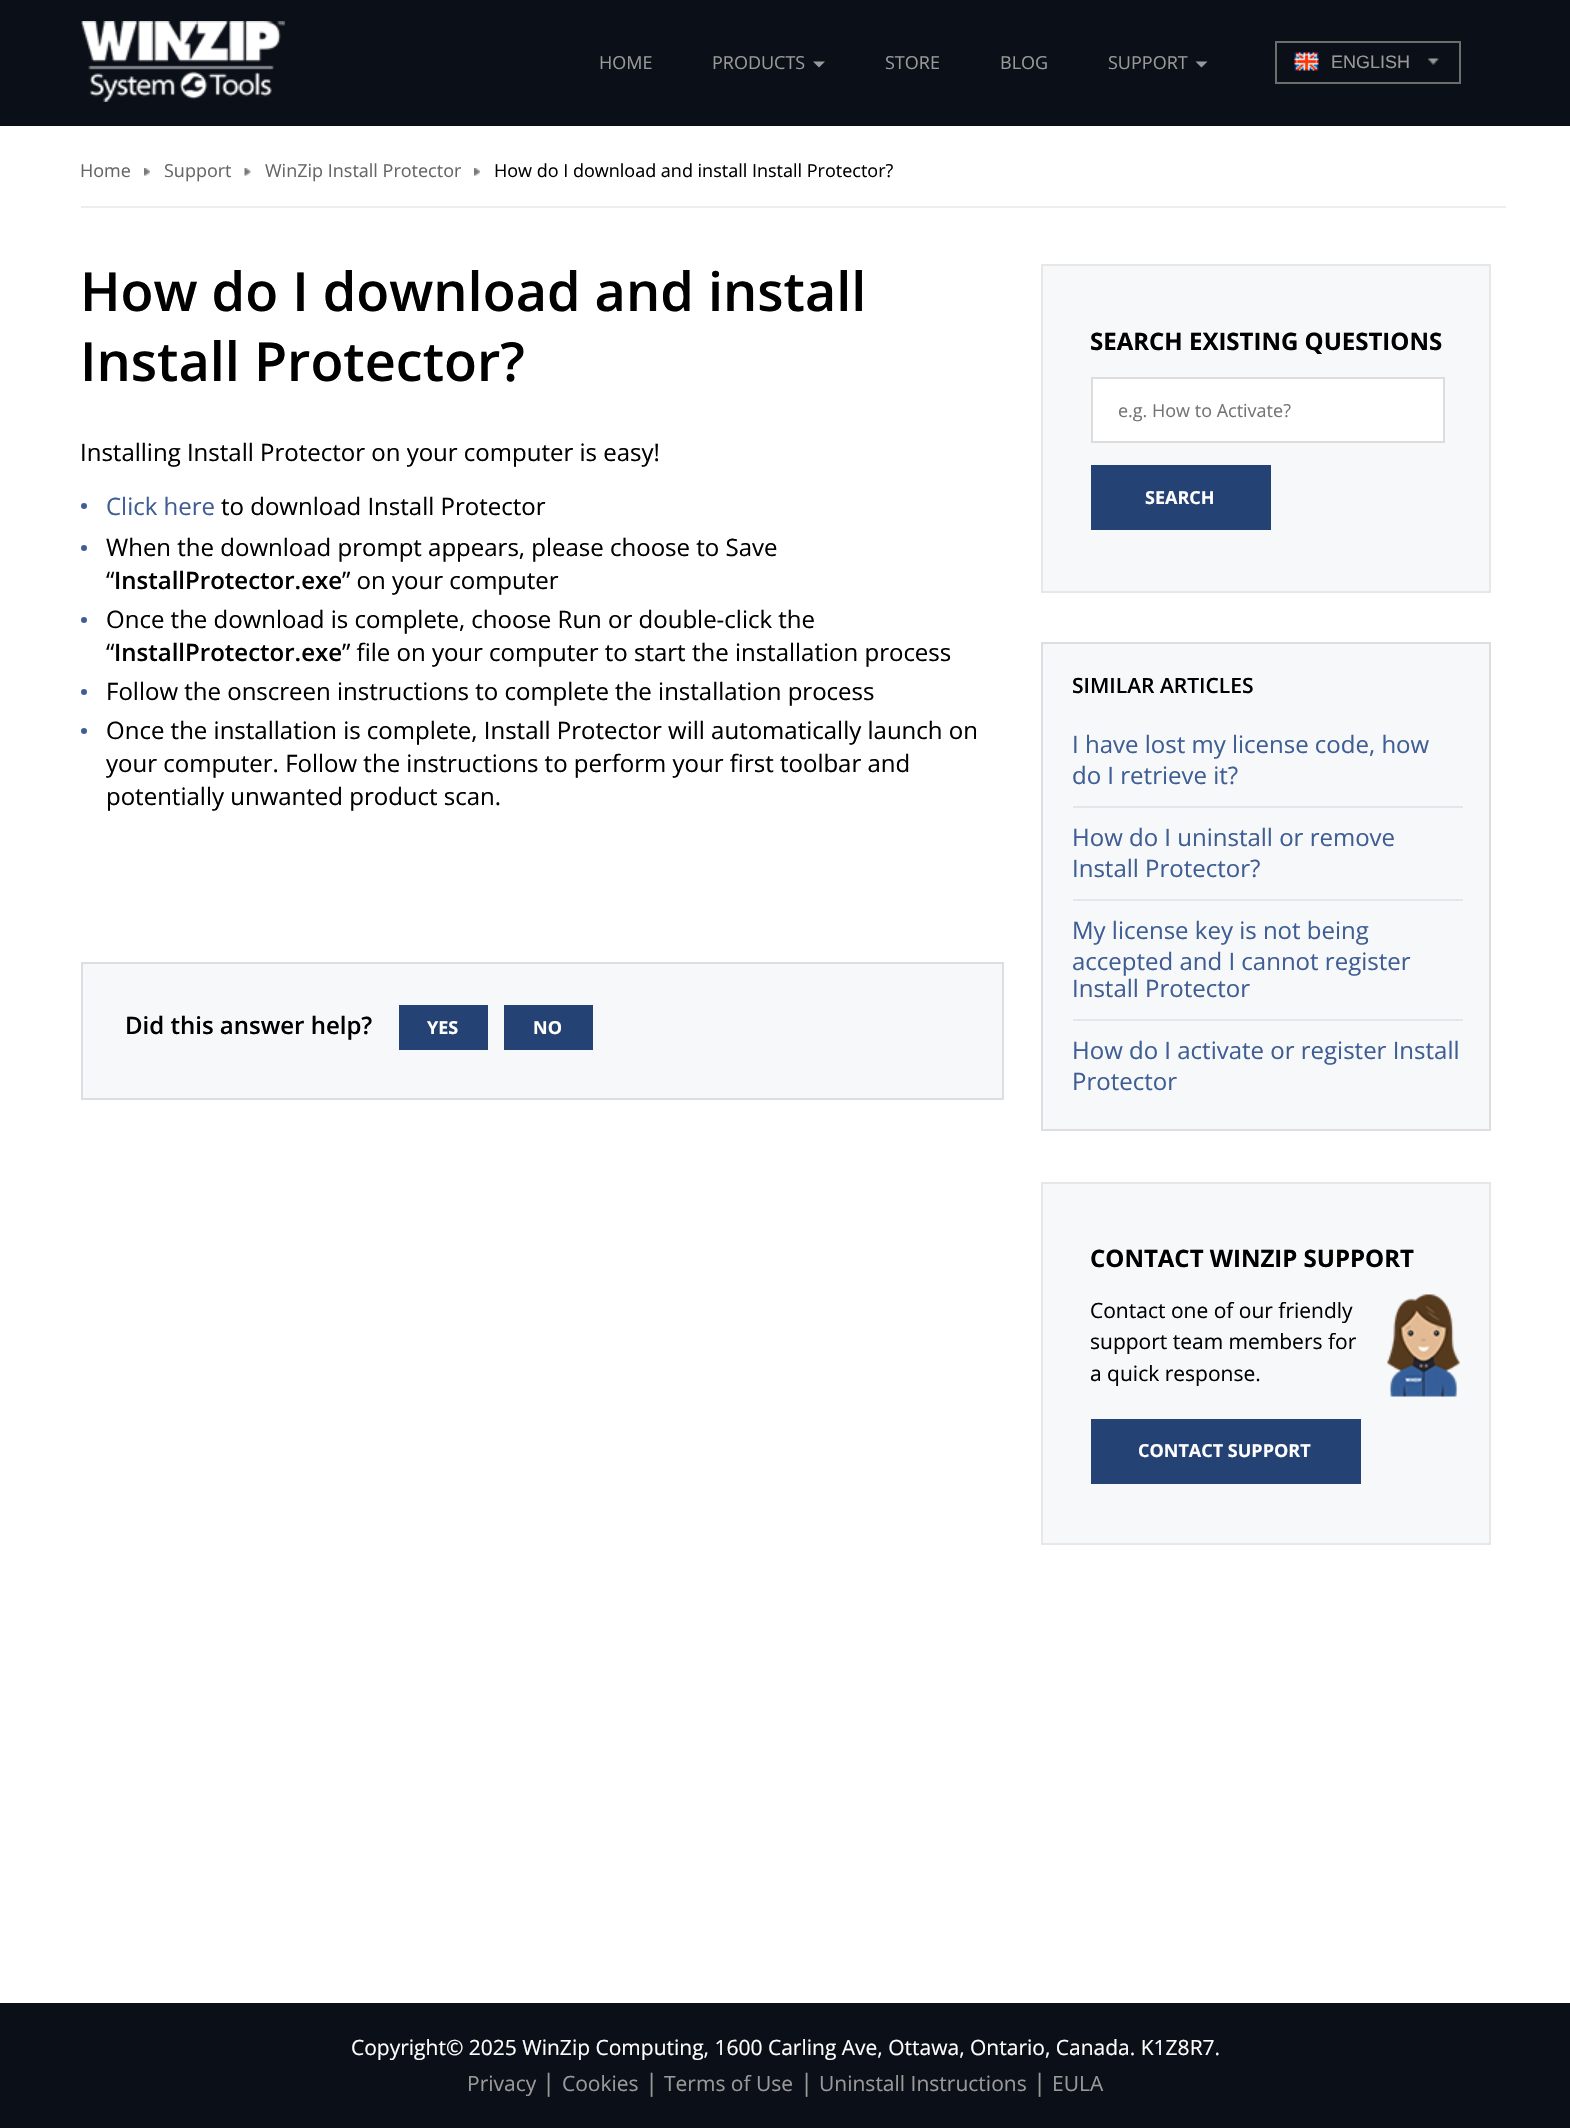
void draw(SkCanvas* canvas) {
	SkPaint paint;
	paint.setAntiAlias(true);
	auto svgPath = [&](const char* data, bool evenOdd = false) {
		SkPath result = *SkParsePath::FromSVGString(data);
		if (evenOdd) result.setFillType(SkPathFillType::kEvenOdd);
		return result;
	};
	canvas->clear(0xffffffff);
	paint.setColor(0xff0b1018);
	canvas->drawRect(SkRect::MakeXYWH(0, 0, 1570, 126), paint);
	canvas->drawImageRect(SkImages::DeferredFromEncodedData(SkData::MakeFromFileName("img1.png")), SkRect::MakeXYWH(81, 21, 204, 81), SkSamplingOptions());
	SkFont f1(fontMgr->matchFamilyStyle("Open Sans", SkFontStyle::Normal()), 18);
	f1.setSubpixel(true);
	paint.setColor(0xff999999);
	canvas->drawString("HOME", 599, 69, f1, paint);
	canvas->drawString("PRODUCTS", 712, 69, f1, paint);
	canvas->drawPath(svgPath("M813 61.5H825L819 67.5Z"), paint);
	canvas->drawString("STORE", 885, 69, f1, paint);
	canvas->drawString("BLOG", 1000, 69, f1, paint);
	canvas->drawString("SUPPORT", 1108, 69, f1, paint);
	canvas->drawPath(svgPath("M1195.5 61.5H1207.5L1201.5 67.5Z"), paint);
	paint.setStroke(true);
	paint.setStrokeWidth(2);
	paint.setColor(0xff6d6d6d);
	canvas->drawRect(SkRect::MakeXYWH(1276, 42, 184, 41), paint);
	canvas->drawImageRect(SkImages::DeferredFromEncodedData(SkData::MakeFromFileName("img2.png")), SkRect::MakeXYWH(1294, 52, 25, 19), SkSamplingOptions());
	SkFont f2(fontMgr->matchFamilyStyle("Liberation Sans", SkFontStyle::Normal()), 18);
	f2.setSubpixel(true);
	paint.setStroke(false);
	paint.setColor(0xff999999);
	canvas->drawString("ENGLISH", 1331, 68, f2, paint);
	canvas->drawImageRect(SkImages::DeferredFromEncodedData(SkData::MakeFromFileName("img3.png")), SkRect::MakeXYWH(1428, 58, 11, 7), SkSamplingOptions());
	paint.setColor(0xffeeeeee);
	canvas->drawRect(SkRect::MakeXYWH(81, 206, 1425, 2), paint);
	paint.setColor(0xff666666);
	canvas->drawString("Home", 80, 177, f1, paint);
	canvas->drawImageRect(SkImages::DeferredFromEncodedData(SkData::MakeFromFileName("img4.png")), SkRect::MakeXYWH(144, 168, 6, 8), SkSamplingOptions());
	canvas->drawString("Support", 164, 177, f1, paint);
	canvas->drawImageRect(SkImages::DeferredFromEncodedData(SkData::MakeFromFileName("img5.png")), SkRect::MakeXYWH(244, 168, 7, 8), SkSamplingOptions());
	canvas->drawString("WinZip Install Protector", 265, 177, f1, paint);
	canvas->drawImageRect(SkImages::DeferredFromEncodedData(SkData::MakeFromFileName("img6.png")), SkRect::MakeXYWH(474, 168, 6, 8), SkSamplingOptions());
	paint.setColor(0xff000000);
	canvas->drawString("How do I download and install Install Protector?", 494, 177, f1, paint);
	SkFont f3(fontMgr->matchFamilyStyle("Open Sans", SkFontStyle(600, SkFontStyle::kNormal_Width, SkFontStyle::kUpright_Slant)), 54);
	f3.setSubpixel(true);
	canvas->drawString("How do I download and install", 80, 311, f3, paint);
	canvas->drawString("Install Protector?", 80, 381, f3, paint);
	SkFont f4(fontMgr->matchFamilyStyle("Open Sans", SkFontStyle::Normal()), 24);
	f4.setSubpixel(true);
	canvas->drawString("Installing Install Protector on your computer is easy!", 80, 461, f4, paint);
	paint.setColor(0xff3f5e94);
	canvas->drawCircle(84, 506, 3, paint);
	canvas->drawString("Click here", 106, 515, f4, paint);
	paint.setColor(0xff000000);
	canvas->drawString("to download Install Protector", 221, 515, f4, paint);
	paint.setColor(0xff3f5e94);
	canvas->drawCircle(84, 548, 3, paint);
	paint.setColor(0xff000000);
	canvas->drawString("When the download prompt appears, please choose to Save", 106, 556, f4, paint);
	canvas->drawString("“", 106, 589, f4, paint);
	SkFont f5(fontMgr->matchFamilyStyle("Open Sans", SkFontStyle(600, SkFontStyle::kNormal_Width, SkFontStyle::kUpright_Slant)), 24);
	f5.setSubpixel(true);
	canvas->drawString("InstallProtector.exe", 114, 589, f5, paint);
	canvas->drawString("” on your computer", 342, 589, f4, paint);
	paint.setColor(0xff3f5e94);
	canvas->drawCircle(84, 620, 3, paint);
	paint.setColor(0xff000000);
	canvas->drawString("Once the download is complete, choose Run or double-click the", 106, 628, f4, paint);
	canvas->drawString("“", 106, 661, f4, paint);
	canvas->drawString("InstallProtector.exe", 114, 661, f5, paint);
	canvas->drawString("” file on your computer to start the installation process", 342, 661, f4, paint);
	paint.setColor(0xff3f5e94);
	canvas->drawCircle(84, 692, 3, paint);
	paint.setColor(0xff000000);
	canvas->drawString("Follow the onscreen instructions to complete the installation process", 106, 700, f4, paint);
	paint.setColor(0xff3f5e94);
	canvas->drawCircle(84, 731, 3, paint);
	paint.setColor(0xff000000);
	canvas->drawString("Once the installation is complete, Install Protector will automatically launch on", 106, 739, f4, paint);
	canvas->drawString("your computer. Follow the instructions to perform your first toolbar and", 106, 772, f4, paint);
	canvas->drawString("potentially unwanted product scan.", 106, 805, f4, paint);
	paint.setColor(0xfff7f8f9);
	canvas->drawRect(SkRect::MakeXYWH(82, 963, 921, 136), paint);
	paint.setStroke(true);
	paint.setColor(0xffdedee2);
	canvas->drawRect(SkRect::MakeXYWH(82, 963, 921, 136), paint);
	paint.setStroke(false);
	paint.setColor(0xff000000);
	canvas->drawString("Did this answer help?", 125, 1034, f5, paint);
	paint.setColor(0xff254275);
	canvas->drawRect(SkRect::MakeXYWH(399, 1005, 89, 45), paint);
	SkFont f6(fontMgr->matchFamilyStyle("Open Sans", SkFontStyle::Bold()), 18);
	f6.setSubpixel(true);
	paint.setColor(0xffffffff);
	canvas->drawString("YES", 427, 1034, f6, paint);
	paint.setColor(0xff254275);
	canvas->drawRect(SkRect::MakeXYWH(504, 1005, 89, 45), paint);
	paint.setColor(0xffffffff);
	canvas->drawString("NO", 533, 1034, f6, paint);
	paint.setColor(0xfff7f8f9);
	canvas->drawRect(SkRect::MakeXYWH(1042, 265, 448, 327), paint);
	paint.setStroke(true);
	paint.setColor(0xffe7e7e7);
	canvas->drawRect(SkRect::MakeXYWH(1042, 265, 448, 327), paint);
	SkFont f7(fontMgr->matchFamilyStyle("Open Sans", SkFontStyle::Bold()), 24);
	f7.setSubpixel(true);
	paint.setStroke(false);
	paint.setColor(0xff000000);
	canvas->drawString("SEARCH EXISTING QUESTIONS", 1090, 350, f7, paint);
	paint.setColor(0xffffffff);
	canvas->drawRect(SkRect::MakeXYWH(1092, 378, 352, 64), paint);
	paint.setStroke(true);
	paint.setColor(0xffdddddd);
	canvas->drawRect(SkRect::MakeXYWH(1092, 378, 352, 64), paint);
	paint.setStroke(false);
	paint.setColor(0xff747474);
	canvas->drawString("e.g. How to Activate?", 1118, 417, f1, paint);
	paint.setColor(0xff254275);
	canvas->drawRect(SkRect::MakeXYWH(1091, 465, 180, 65), paint);
	paint.setColor(0xffffffff);
	canvas->drawString("SEARCH", 1145, 504, f6, paint);
	paint.setColor(0xfff7f8f9);
	canvas->drawRect(SkRect::MakeXYWH(1042, 643, 448, 487), paint);
	paint.setStroke(true);
	paint.setColor(0xffdedee2);
	canvas->drawRect(SkRect::MakeXYWH(1042, 643, 448, 487), paint);
	SkFont f8(fontMgr->matchFamilyStyle("Open Sans", SkFontStyle(600, SkFontStyle::kNormal_Width, SkFontStyle::kUpright_Slant)), 21);
	f8.setSubpixel(true);
	paint.setStroke(false);
	paint.setColor(0xff000000);
	canvas->drawString("SIMILAR ARTICLES", 1072, 693, f8, paint);
	paint.setColor(0xff3f5e94);
	canvas->drawString("I have lost my license code, how", 1072, 753, f4, paint);
	canvas->drawString("do I retrieve it?", 1072, 784, f4, paint);
	paint.setColor(0xffe4e6ea);
	canvas->drawRect(SkRect::MakeXYWH(1073, 806, 390, 2), paint);
	paint.setColor(0xff3f5e94);
	canvas->drawString("How do I uninstall or remove", 1072, 846, f4, paint);
	canvas->drawString("Install Protector?", 1072, 877, f4, paint);
	paint.setColor(0xffe4e6ea);
	canvas->drawRect(SkRect::MakeXYWH(1073, 899, 390, 2), paint);
	paint.setColor(0xff3f5e94);
	canvas->drawString("My license key is not being", 1072, 939, f4, paint);
	canvas->drawString("accepted and I cannot register", 1072, 970, f4, paint);
	canvas->drawString("Install Protector", 1072, 997, f4, paint);
	paint.setColor(0xffe4e6ea);
	canvas->drawRect(SkRect::MakeXYWH(1073, 1019, 390, 2), paint);
	paint.setColor(0xff3f5e94);
	canvas->drawString("How do I activate or register Install", 1072, 1059, f4, paint);
	canvas->drawString("Protector", 1072, 1090, f4, paint);
	paint.setColor(0xfff7f8f9);
	canvas->drawRect(SkRect::MakeXYWH(1042, 1183, 448, 361), paint);
	paint.setStroke(true);
	paint.setColor(0xffe7e7e7);
	canvas->drawRect(SkRect::MakeXYWH(1042, 1183, 448, 361), paint);
	paint.setStroke(false);
	paint.setColor(0xff000000);
	canvas->drawString("CONTACT WINZIP SUPPORT", 1090, 1267, f7, paint);
	SkFont f9(fontMgr->matchFamilyStyle("Open Sans", SkFontStyle::Normal()), 21);
	f9.setSubpixel(true);
	canvas->drawString("Contact one of our friendly", 1090, 1318, f9, paint);
	canvas->drawString("support team members for", 1090, 1349, f9, paint);
	canvas->drawString("a quick response.", 1090, 1381, f9, paint);
	canvas->drawImageRect(SkImages::DeferredFromEncodedData(SkData::MakeFromFileName("img7.png")), SkRect::MakeXYWH(1387, 1294, 73, 103), SkSamplingOptions());
	paint.setColor(0xff254275);
	canvas->drawRect(SkRect::MakeXYWH(1091, 1419, 270, 65), paint);
	paint.setColor(0xffffffff);
	canvas->drawString("CONTACT SUPPORT", 1138, 1457, f6, paint);
	paint.setColor(0xff0b1018);
	canvas->drawRect(SkRect::MakeXYWH(0, 2003, 1570, 125), paint);
	paint.setColor(0xffffffff);
	canvas->drawString("Copyright© 2025 WinZip Computing, 1600 Carling Ave, Ottawa, Ontario, Canada. K1Z8R7.", 351, 2055, f9, paint);
	paint.setColor(0xff999999);
	canvas->drawString("Privacy", 467, 2091, f9, paint);
	canvas->drawString("|", 542, 2091, f4, paint);
	canvas->drawString("Cookies", 562, 2091, f9, paint);
	canvas->drawString("|", 645, 2091, f4, paint);
	canvas->drawString("Terms of Use", 664, 2091, f9, paint);
	canvas->drawString("|", 800, 2091, f4, paint);
	canvas->drawString("Uninstall Instructions", 819, 2091, f9, paint);
	canvas->drawString("|", 1033, 2091, f4, paint);
	canvas->drawString("EULA", 1052, 2091, f9, paint);
}
